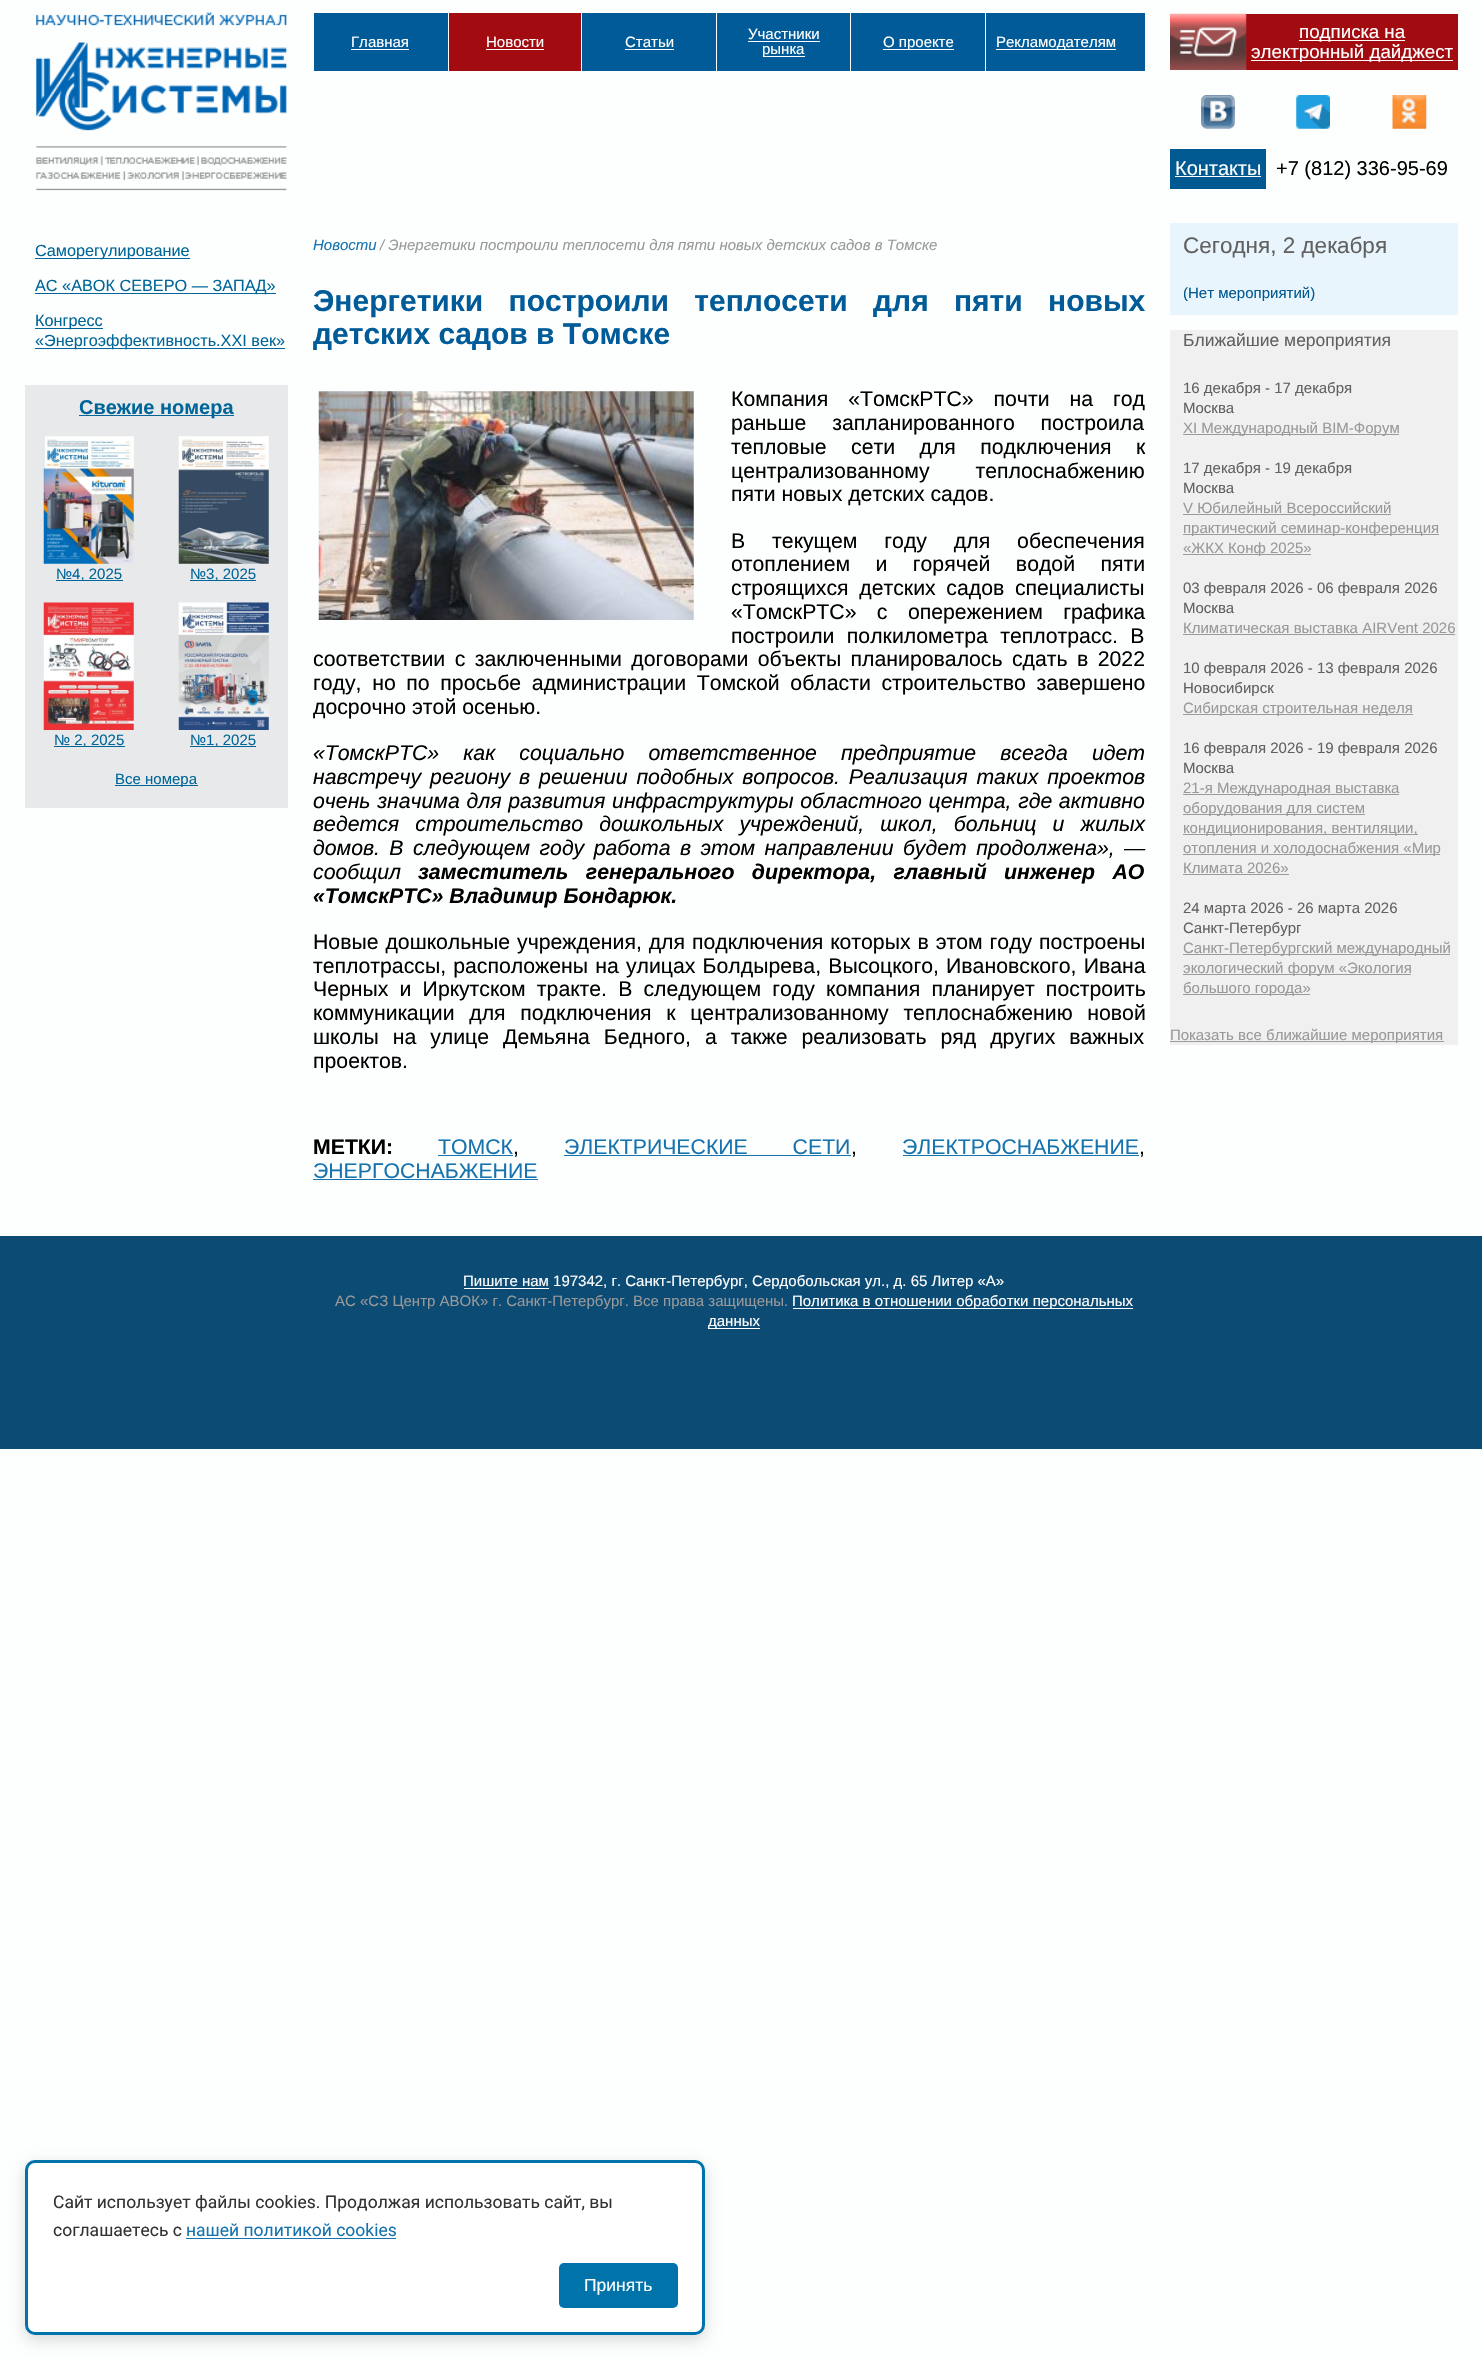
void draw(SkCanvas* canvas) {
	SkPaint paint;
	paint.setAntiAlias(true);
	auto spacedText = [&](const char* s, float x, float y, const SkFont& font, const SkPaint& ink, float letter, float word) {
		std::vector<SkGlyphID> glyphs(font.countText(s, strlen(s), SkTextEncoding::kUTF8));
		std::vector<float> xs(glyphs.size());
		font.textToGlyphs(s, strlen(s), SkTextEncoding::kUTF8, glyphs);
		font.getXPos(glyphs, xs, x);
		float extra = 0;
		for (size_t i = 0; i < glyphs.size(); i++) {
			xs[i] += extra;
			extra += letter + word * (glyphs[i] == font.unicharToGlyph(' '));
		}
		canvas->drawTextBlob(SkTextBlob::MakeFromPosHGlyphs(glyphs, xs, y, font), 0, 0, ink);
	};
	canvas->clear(0xfffdfefe);
	canvas->drawImageRect(SkImages::DeferredFromEncodedData(SkData::MakeFromFileName("img1.png")), SkRect::MakeXYWH(36, 12, 251, 179), SkSamplingOptions());
	paint.setColor(0xff005b98);
	canvas->drawRect(SkRect::MakeXYWH(314, 13, 831, 58), paint);
	SkFont f1(fontMgr->matchFamilyStyle("Liberation Sans", SkFontStyle::Normal()), 15);
	f1.setSubpixel(true);
	paint.setColor(0xffffffff);
	canvas->drawString("Главная", 351, 47, f1, paint);
	canvas->drawRect(SkRect::MakeXYWH(351, 49, 58, 1), paint);
	paint.setColor(0xffa20c11);
	canvas->drawRect(SkRect::MakeXYWH(449, 13, 132, 58), paint);
	paint.setColor(0xffffffff);
	canvas->drawRect(SkRect::MakeXYWH(448, 13, 1, 58), paint);
	canvas->drawString("Новости", 486, 47, f1, paint);
	canvas->drawRect(SkRect::MakeXYWH(486, 49, 58, 1), paint);
	canvas->drawRect(SkRect::MakeXYWH(581, 13, 1, 58), paint);
	canvas->drawString("Статьи", 625, 47, f1, paint);
	canvas->drawRect(SkRect::MakeXYWH(625, 49, 49, 1), paint);
	canvas->drawRect(SkRect::MakeXYWH(716, 13, 1, 58), paint);
	canvas->drawString("Участники", 748, 39, f1, paint);
	canvas->drawRect(SkRect::MakeXYWH(748, 41, 72, 1), paint);
	canvas->drawRect(SkRect::MakeXYWH(763, 56, 42, 1), paint);
	canvas->drawString("рынка", 762, 54, f1, paint);
	canvas->drawRect(SkRect::MakeXYWH(850, 13, 1, 58), paint);
	canvas->drawRect(SkRect::MakeXYWH(883, 49, 71, 1), paint);
	canvas->drawString("О проекте", 883, 47, f1, paint);
	canvas->drawRect(SkRect::MakeXYWH(985, 13, 1, 58), paint);
	canvas->drawRect(SkRect::MakeXYWH(996, 49, 120, 1), paint);
	canvas->drawString("Рекламодателям", 996, 47, f1, paint);
	paint.setColor(0xffa20c11);
	canvas->drawRect(SkRect::MakeXYWH(1246, 14, 212, 56), paint);
	canvas->drawImageRect(SkImages::DeferredFromEncodedData(SkData::MakeFromFileName("img2.png")), SkRect::MakeXYWH(1170, 13, 77, 57), SkSamplingOptions());
	paint.setColor(0xffffffff);
	canvas->drawRect(SkRect::MakeXYWH(1299, 40, 106, 1), paint);
	SkFont f2(fontMgr->matchFamilyStyle("Liberation Sans", SkFontStyle::Normal()), 18.75);
	f2.setSubpixel(true);
	canvas->drawString("подписка на", 1299, 38, f2, paint);
	canvas->drawRect(SkRect::MakeXYWH(1251, 60, 202, 1), paint);
	canvas->drawString("электронный дайджест", 1251, 58, f2, paint);
	canvas->drawImageRect(SkImages::DeferredFromEncodedData(SkData::MakeFromFileName("img3.png")), SkRect::MakeXYWH(1201, 95, 34, 34), SkSamplingOptions());
	canvas->drawImageRect(SkImages::DeferredFromEncodedData(SkData::MakeFromFileName("img4.png")), SkRect::MakeXYWH(1296, 95, 34, 34), SkSamplingOptions());
	canvas->drawImageRect(SkImages::DeferredFromEncodedData(SkData::MakeFromFileName("img5.png")), SkRect::MakeXYWH(1392, 95, 35, 34), SkSamplingOptions());
	paint.setColor(0xff005990);
	canvas->drawRect(SkRect::MakeXYWH(1170, 149, 96, 40), paint);
	SkFont f3(fontMgr->matchFamilyStyle("Liberation Sans", SkFontStyle::Normal()), 20);
	f3.setSubpixel(true);
	paint.setColor(0xffffffff);
	canvas->drawString("Контакты", 1175, 175, f3, paint);
	canvas->drawRect(SkRect::MakeXYWH(1175, 176, 86, 1), paint);
	paint.setColor(0xff000000);
	canvas->drawString("+7 (812) 336-95-69", 1276, 175, f3, paint);
	paint.setColor(0xff006699);
	canvas->drawRect(SkRect::MakeXYWH(35, 258, 155, 1), paint);
	SkFont f4(fontMgr->matchFamilyStyle("Liberation Sans", SkFontStyle::Normal()), 16.25);
	f4.setSubpixel(true);
	canvas->drawString("Саморегулирование", 35, 256, f4, paint);
	canvas->drawRect(SkRect::MakeXYWH(35, 293, 241, 1), paint);
	canvas->drawString("АС «АВОК СЕВЕРО — ЗАПАД»", 35, 291, f4, paint);
	canvas->drawRect(SkRect::MakeXYWH(35, 328, 68, 1), paint);
	canvas->drawString("Конгресс", 35, 326, f4, paint);
	canvas->drawRect(SkRect::MakeXYWH(35, 348, 250, 1), paint);
	canvas->drawString("«Энергоэффективность.XXI век»", 35, 346, f4, paint);
	paint.setColor(0xffe8e9eb);
	canvas->drawRect(SkRect::MakeXYWH(25, 385, 263, 423), paint);
	paint.setColor(0xff006699);
	canvas->drawRect(SkRect::MakeXYWH(79, 415, 155, 1), paint);
	SkFont f5(fontMgr->matchFamilyStyle("Liberation Sans", SkFontStyle::Bold()), 20);
	f5.setSubpixel(true);
	canvas->drawString("Свежие номера", 79, 414, f5, paint);
	canvas->drawImageRect(SkImages::DeferredFromEncodedData(SkData::MakeFromFileName("img6.png")), SkRect::MakeXYWH(43, 436, 91, 128), SkSamplingOptions());
	canvas->drawRect(SkRect::MakeXYWH(56, 580, 67, 1), paint);
	canvas->drawString("№4, 2025", 56, 579, f1, paint);
	canvas->drawImageRect(SkImages::DeferredFromEncodedData(SkData::MakeFromFileName("img7.png")), SkRect::MakeXYWH(178, 436, 91, 128), SkSamplingOptions());
	canvas->drawRect(SkRect::MakeXYWH(190, 580, 66, 1), paint);
	canvas->drawString("№3, 2025", 190, 579, f1, paint);
	canvas->drawImageRect(SkImages::DeferredFromEncodedData(SkData::MakeFromFileName("img8.png")), SkRect::MakeXYWH(43, 602, 91, 128), SkSamplingOptions());
	canvas->drawRect(SkRect::MakeXYWH(54, 746, 71, 1), paint);
	canvas->drawString("№ 2, 2025", 54, 745, f1, paint);
	canvas->drawImageRect(SkImages::DeferredFromEncodedData(SkData::MakeFromFileName("img9.png")), SkRect::MakeXYWH(178, 602, 91, 128), SkSamplingOptions());
	canvas->drawRect(SkRect::MakeXYWH(190, 746, 66, 1), paint);
	canvas->drawString("№1, 2025", 190, 745, f1, paint);
	canvas->drawRect(SkRect::MakeXYWH(115, 785, 83, 1), paint);
	canvas->drawString("Все номера", 115, 784, f1, paint);
	SkFont f6(fontMgr->matchFamilyStyle("Liberation Sans", SkFontStyle::Italic()), 15);
	f6.setSubpixel(true);
	paint.setColor(0xff1773ae);
	canvas->drawString("Новости", 313, 250, f6, paint);
	paint.setColor(0xff999999);
	canvas->drawString("/ Энергетики построили теплосети для пяти новых детских садов в Томске", 380, 250, f6, paint);
	SkFont f7(fontMgr->matchFamilyStyle("Liberation Sans", SkFontStyle::Bold()), 30);
	f7.setSubpixel(true);
	paint.setColor(0xff005b98);
	spacedText("Энергетики построили теплосети для пяти новых", 313, 311, f7, paint, 0, 17);
	canvas->drawString("детских садов в Томске", 313, 344, f7, paint);
	canvas->drawImageRect(SkImages::DeferredFromEncodedData(SkData::MakeFromFileName("img10.png")), SkRect::MakeXYWH(318, 391, 376, 229), SkSamplingOptions());
	SkFont f8(fontMgr->matchFamilyStyle("Liberation Sans", SkFontStyle::Normal()), 21.25);
	f8.setSubpixel(true);
	paint.setColor(0xff000000);
	spacedText("Компания «ТомскРТС» почти на год", 731, 406, f8, paint, 0, 14);
	spacedText("раньше запланированного построила", 731, 430, f8, paint, 0, 20);
	spacedText("тепловые сети для подключения к", 731, 454, f8, paint, 0, 18.5);
	spacedText("централизованному теплоснабжению", 731, 478, f8, paint, 0, 40);
	canvas->drawString("пяти новых детских садов.", 731, 501, f8, paint);
	spacedText("В текущем году для обеспечения", 731, 548, f8, paint, 0, 21);
	spacedText("отоплением и горячей водой пяти", 731, 571, f8, paint, 0, 19.5);
	spacedText("строящихся детских садов специалисты", 731, 595, f8, paint, 0, 4.75);
	spacedText("«ТомскРТС» с опережением графика", 731, 619, f8, paint, 0, 14.5);
	spacedText("построили полкилометра теплотрасс. В", 731, 643, f8, paint, 0, 6.5);
	spacedText("соответствии с заключенными договорами объекты планировалось сдать в 2022", 313, 666, f8, paint, 0, 3.5);
	spacedText("году, но по просьбе администрации Томской области строительство завершено", 313, 690, f8, paint, 0, 4.75);
	canvas->drawString("досрочно этой осенью.", 313, 714, f8, paint);
	SkFont f9(fontMgr->matchFamilyStyle("Liberation Sans", SkFontStyle::Italic()), 21.25);
	f9.setSubpixel(true);
	spacedText("«ТомскРТС» как социально ответственное предприятие всегда идет", 313, 760, f9, paint, 0, 18.25);
	spacedText("навстречу региону в решении подобных вопросов. Реализация таких проектов", 313, 784, f9, paint, 0, 3);
	spacedText("очень значима для развития инфраструктуры областного центра, где активно", 313, 808, f9, paint, 0, 0.75);
	spacedText("ведется строительство дошкольных учреждений, школ, больниц и жилых", 313, 831, f9, paint, 0, 10.25);
	spacedText("домов. В следующем году работа в этом направлении будет продолжена», —", 313, 855, f9, paint, 0, 3.5);
	canvas->drawString("сообщил", 313, 879, f9, paint);
	SkFont f10(fontMgr->matchFamilyStyle("Liberation Sans", SkFontStyle::BoldItalic()), 21.25);
	f10.setSubpixel(true);
	spacedText("заместитель генерального директора, главный инженер АО", 418, 879, f10, paint, 0, 11.5);
	canvas->drawString("«ТомскРТС» Владимир Бондарюк.", 313, 903, f10, paint);
	spacedText("Новые дошкольные учреждения, для подключения которых в этом году построены", 313, 949, f8, paint, 0, 1);
	spacedText("теплотрассы, расположены на улицах Болдырева, Высоцкого, Ивановского, Ивана", 313, 973, f8, paint, 0, 1.25);
	spacedText("Черных и Иркутском тракте. В следующем году компания планирует построить", 313, 996, f8, paint, 0, 5.25);
	spacedText("коммуникации для подключения к централизованному теплоснабжению новой", 313, 1020, f8, paint, 0, 8.75);
	spacedText("школы на улице Демьяна Бедного, а также реализовать ряд других важных", 313, 1044, f8, paint, 0, 8);
	canvas->drawString("проектов.", 313, 1068, f8, paint);
	SkFont f11(fontMgr->matchFamilyStyle("Liberation Sans", SkFontStyle::Bold()), 21.25);
	f11.setSubpixel(true);
	canvas->drawString("МЕТКИ:", 313, 1154, f11, paint);
	paint.setColor(0xff1773ae);
	canvas->drawString("ТОМСК", 438, 1154, f8, paint);
	canvas->drawRect(SkRect::MakeXYWH(438, 1155, 75, 1), paint);
	paint.setColor(0xff000000);
	canvas->drawString(",", 513, 1154, f8, paint);
	paint.setColor(0xff1773ae);
	spacedText("ЭЛЕКТРИЧЕСКИЕ СЕТИ", 564, 1154, f8, paint, 0, 39);
	canvas->drawRect(SkRect::MakeXYWH(564, 1155, 287, 1), paint);
	paint.setColor(0xff000000);
	canvas->drawString(",", 851, 1154, f8, paint);
	paint.setColor(0xff1773ae);
	canvas->drawString("ЭЛЕКТРОСНАБЖЕНИЕ", 902, 1154, f8, paint);
	canvas->drawRect(SkRect::MakeXYWH(903, 1155, 236, 1), paint);
	paint.setColor(0xff000000);
	canvas->drawString(",", 1139, 1154, f8, paint);
	paint.setColor(0xff1773ae);
	canvas->drawString("ЭНЕРГОСНАБЖЕНИЕ", 313, 1178, f8, paint);
	canvas->drawRect(SkRect::MakeXYWH(313, 1179, 225, 1), paint);
	paint.setColor(0xffe8f5fc);
	canvas->drawRect(SkRect::MakeXYWH(1170, 223, 288, 92), paint);
	SkFont f12(fontMgr->matchFamilyStyle("Liberation Sans", SkFontStyle::Normal()), 22.5);
	f12.setSubpixel(true);
	paint.setColor(0xff616161);
	canvas->drawString("Сегодня, 2 декабря", 1183, 253, f12, paint);
	paint.setColor(0xff005990);
	canvas->drawString("(Нет мероприятий)", 1183, 298, f1, paint);
	paint.setColor(0xfff0f0f0);
	canvas->drawRect(SkRect::MakeXYWH(1170, 330, 288, 715), paint);
	SkFont f13(fontMgr->matchFamilyStyle("Liberation Sans", SkFontStyle::Normal()), 17.5);
	f13.setSubpixel(true);
	paint.setColor(0xff616161);
	canvas->drawString("Ближайшие мероприятия", 1183, 346, f13, paint);
	canvas->drawString("16 декабря - 17 декабря", 1183, 393, f1, paint);
	canvas->drawString("Москва", 1183, 413, f1, paint);
	paint.setColor(0xff9b9b9b);
	canvas->drawRect(SkRect::MakeXYWH(1183, 434, 216, 1), paint);
	paint.setColor(0xff999999);
	canvas->drawString("XI Международный BIM-Форум", 1183, 433, f1, paint);
	paint.setColor(0xff616161);
	canvas->drawString("17 декабря - 19 декабря", 1183, 473, f1, paint);
	canvas->drawString("Москва", 1183, 493, f1, paint);
	paint.setColor(0xff9b9b9b);
	canvas->drawRect(SkRect::MakeXYWH(1183, 514, 208, 1), paint);
	paint.setColor(0xff999999);
	canvas->drawString("V Юбилейный Всероссийский", 1183, 513, f1, paint);
	paint.setColor(0xff9b9b9b);
	canvas->drawRect(SkRect::MakeXYWH(1183, 534, 256, 1), paint);
	paint.setColor(0xff999999);
	canvas->drawString("практический семинар-конференция", 1183, 533, f1, paint);
	paint.setColor(0xff9b9b9b);
	canvas->drawRect(SkRect::MakeXYWH(1183, 554, 128, 1), paint);
	paint.setColor(0xff999999);
	canvas->drawString("«ЖКХ Конф 2025»", 1183, 553, f1, paint);
	paint.setColor(0xff616161);
	canvas->drawString("03 февраля 2026 - 06 февраля 2026", 1183, 593, f1, paint);
	canvas->drawString("Москва", 1183, 613, f1, paint);
	paint.setColor(0xff999999);
	canvas->drawString("Климатическая выставка AIRVent 2026", 1183, 633, f1, paint);
	paint.setColor(0xff9b9b9b);
	canvas->drawRect(SkRect::MakeXYWH(1183, 634, 272, 1), paint);
	paint.setColor(0xff616161);
	canvas->drawString("10 февраля 2026 - 13 февраля 2026", 1183, 673, f1, paint);
	canvas->drawString("Новосибирск", 1183, 693, f1, paint);
	paint.setColor(0xff9b9b9b);
	canvas->drawRect(SkRect::MakeXYWH(1183, 714, 230, 1), paint);
	paint.setColor(0xff999999);
	canvas->drawString("Сибирская строительная неделя", 1183, 713, f1, paint);
	paint.setColor(0xff616161);
	canvas->drawString("16 февраля 2026 - 19 февраля 2026", 1183, 753, f1, paint);
	canvas->drawString("Москва", 1183, 773, f1, paint);
	paint.setColor(0xff9b9b9b);
	canvas->drawRect(SkRect::MakeXYWH(1183, 794, 216, 1), paint);
	paint.setColor(0xff999999);
	canvas->drawString("21-я Международная выставка", 1183, 793, f1, paint);
	paint.setColor(0xff9b9b9b);
	canvas->drawRect(SkRect::MakeXYWH(1183, 814, 182, 1), paint);
	paint.setColor(0xff999999);
	canvas->drawString("оборудования для систем", 1183, 813, f1, paint);
	paint.setColor(0xff9b9b9b);
	canvas->drawRect(SkRect::MakeXYWH(1183, 834, 235, 1), paint);
	paint.setColor(0xff999999);
	canvas->drawString("кондиционирования, вентиляции,", 1183, 833, f1, paint);
	paint.setColor(0xff9b9b9b);
	canvas->drawRect(SkRect::MakeXYWH(1183, 854, 257, 1), paint);
	paint.setColor(0xff999999);
	canvas->drawString("отопления и холодоснабжения «Мир", 1183, 853, f1, paint);
	canvas->drawString("Климата 2026»", 1183, 873, f1, paint);
	paint.setColor(0xff9b9b9b);
	canvas->drawRect(SkRect::MakeXYWH(1183, 874, 106, 1), paint);
	paint.setColor(0xff616161);
	canvas->drawString("24 марта 2026 - 26 марта 2026", 1183, 913, f1, paint);
	canvas->drawString("Санкт-Петербург", 1183, 933, f1, paint);
	paint.setColor(0xff9b9b9b);
	canvas->drawRect(SkRect::MakeXYWH(1183, 954, 267, 1), paint);
	paint.setColor(0xff999999);
	canvas->drawString("Санкт-Петербургский международный", 1183, 953, f1, paint);
	paint.setColor(0xff9b9b9b);
	canvas->drawRect(SkRect::MakeXYWH(1183, 974, 228, 1), paint);
	paint.setColor(0xff999999);
	canvas->drawString("экологический форум «Экология", 1183, 973, f1, paint);
	paint.setColor(0xff9b9b9b);
	canvas->drawRect(SkRect::MakeXYWH(1183, 994, 127, 1), paint);
	paint.setColor(0xff999999);
	canvas->drawString("большого города»", 1183, 993, f1, paint);
	paint.setColor(0xff9b9b9b);
	canvas->drawRect(SkRect::MakeXYWH(1170, 1041, 274, 1), paint);
	paint.setColor(0xff999999);
	canvas->drawString("Показать все ближайшие мероприятия", 1170, 1040, f1, paint);
	paint.setColor(0xff0b4b74);
	canvas->drawRect(SkRect::MakeXYWH(0, 1236, 1482, 213), paint);
	paint.setColor(0xffffffff);
	canvas->drawRect(SkRect::MakeXYWH(464, 1288, 85, 1), paint);
	canvas->drawString("Пишите нам 197342, г. Санкт-Петербург, Сердобольская ул., д. 65 Литер «А»", 463, 1286, f1, paint);
	paint.setColor(0xff999999);
	canvas->drawString("АС «СЗ Центр АВОК» г. Санкт-Петербург. Все права защищены.", 335, 1306, f1, paint);
	paint.setColor(0xffffffff);
	canvas->drawRect(SkRect::MakeXYWH(793, 1308, 340, 1), paint);
	canvas->drawString("Политика в отношении обработки персональных", 792, 1306, f1, paint);
	canvas->drawRect(SkRect::MakeXYWH(708, 1328, 52, 1), paint);
	canvas->drawString("данных", 708, 1326, f1, paint);
	paint.setColor(0x26000000);
	paint.setMaskFilter(SkMaskFilter::MakeBlur(kNormal_SkBlurStyle, 7.5));
	canvas->drawRoundRect(SkRect::MakeXYWH(25, 2165, 680, 175), 10, 10, paint);
	paint.setMaskFilter(nullptr);
	paint.setColor(0xffffffff);
	canvas->drawRoundRect(SkRect::MakeXYWH(26.5, 2161.5, 677, 172), 8.5, 8.5, paint);
	paint.setStroke(true);
	paint.setStrokeWidth(3);
	paint.setColor(0xff0073aa);
	canvas->drawRoundRect(SkRect::MakeXYWH(26.5, 2161.5, 677, 172), 8.5, 8.5, paint);
	SkFont f14(fontMgr->matchFamilyStyle("Roboto", SkFontStyle::Normal()), 17.5);
	f14.setSubpixel(true);
	paint.setStroke(false);
	paint.setColor(0xff333333);
	canvas->drawString("Сайт использует файлы cookies. Продолжая использовать сайт, вы", 53, 2208, f14, paint);
	canvas->drawString("соглашаетесь с", 53, 2236, f14, paint);
	paint.setColor(0xff1773ae);
	canvas->drawString("нашей политикой cookies", 186, 2236, f14, paint);
	canvas->drawRect(SkRect::MakeXYWH(186, 2238, 210, 1), paint);
	paint.setColor(0xff0073aa);
	canvas->drawRoundRect(SkRect::MakeXYWH(559, 2263, 119, 45), 5, 5, paint);
	paint.setColor(0xffffffff);
	canvas->drawString("Принять", 584, 2291, f13, paint);
}
